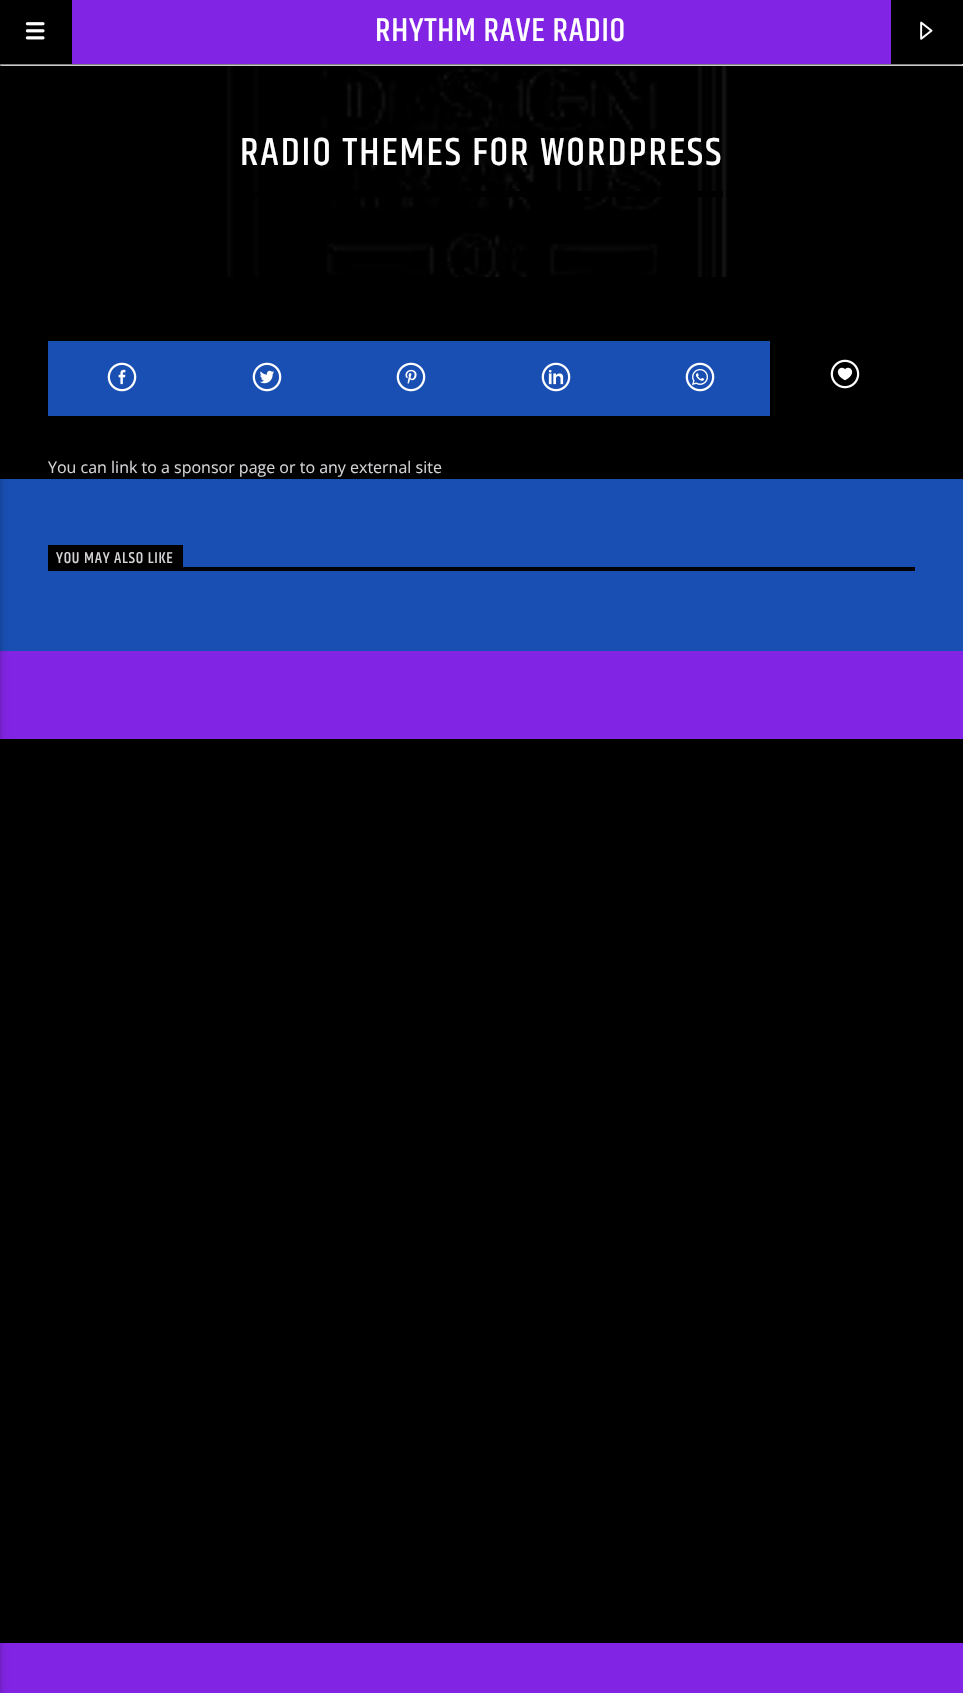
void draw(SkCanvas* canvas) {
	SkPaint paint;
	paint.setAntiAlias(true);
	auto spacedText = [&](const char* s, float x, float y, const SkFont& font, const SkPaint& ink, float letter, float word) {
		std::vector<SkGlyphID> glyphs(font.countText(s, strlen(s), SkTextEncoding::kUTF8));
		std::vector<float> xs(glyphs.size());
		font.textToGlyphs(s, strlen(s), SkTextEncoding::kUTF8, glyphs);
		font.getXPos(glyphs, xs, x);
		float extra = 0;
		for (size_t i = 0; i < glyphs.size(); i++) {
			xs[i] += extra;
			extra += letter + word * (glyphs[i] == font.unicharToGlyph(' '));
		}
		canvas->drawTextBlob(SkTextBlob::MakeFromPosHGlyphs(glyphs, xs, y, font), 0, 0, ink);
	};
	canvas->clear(0xff000000);
	paint.setColor(0xff9f9f9f);
	canvas->drawRect(SkRect::MakeXYWH(0, 64, 963, 1), paint);
	paint.setColor(0xffeeeeee);
	canvas->drawRect(SkRect::MakeXYWH(962, 64, 1, 2), paint);
	canvas->drawRect(SkRect::MakeXYWH(0, 65, 963, 1), paint);
	paint.setColor(0xff9f9f9f);
	canvas->drawRect(SkRect::MakeXYWH(0, 64, 1, 2), paint);
	paint.setColor(0xff194fb2);
	canvas->drawRect(SkRect::MakeXYWH(0, 479, 963, 172), paint);
	paint.setColor(0xff8224e3);
	canvas->drawRect(SkRect::MakeXYWH(0, 651, 963, 88), paint);
	canvas->drawRect(SkRect::MakeXYWH(0, 1643, 963, 50), paint);
	paint.setColor(0x1f000000);
	paint.setMaskFilter(SkMaskFilter::MakeBlur(kNormal_SkBlurStyle, 5));
	canvas->drawRect(SkRect::MakeXYWH(-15, 2, 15, 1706), paint);
	paint.setMaskFilter(nullptr);
	paint.setColor(0x29000000);
	paint.setMaskFilter(SkMaskFilter::MakeBlur(kNormal_SkBlurStyle, 2.5));
	canvas->drawRect(SkRect::MakeXYWH(-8, 2, 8, 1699), paint);
	paint.setMaskFilter(nullptr);
	canvas->drawImageRect(SkImages::DeferredFromEncodedData(SkData::MakeFromFileName("img3.png")), SkRect::MakeXYWH(227, 66, 500, 211), SkSamplingOptions());
	paint.setColor(0x1f000000);
	paint.setMaskFilter(SkMaskFilter::MakeBlur(kNormal_SkBlurStyle, 5));
	canvas->drawRect(SkRect::MakeXYWH(0, 2, 963, 64), paint);
	paint.setMaskFilter(nullptr);
	paint.setColor(0x29000000);
	paint.setMaskFilter(SkMaskFilter::MakeBlur(kNormal_SkBlurStyle, 2.5));
	canvas->drawRect(SkRect::MakeXYWH(0, 2, 963, 64), paint);
	paint.setMaskFilter(nullptr);
	paint.setColor(0xff8224e3);
	canvas->drawRect(SkRect::MakeXYWH(72, 0, 819, 64), paint);
	canvas->drawImageRect(SkImages::DeferredFromEncodedData(SkData::MakeFromFileName("img1.png")), SkRect::MakeXYWH(25, 22, 20, 18), SkSamplingOptions());
	SkFont f1(fontMgr->matchFamilyStyle("Khand", SkFontStyle(500, SkFontStyle::kNormal_Width, SkFontStyle::kUpright_Slant)), 33.5);
	f1.setSubpixel(true);
	paint.setColor(0xffffffff);
	spacedText("RHYTHM RAVE RADIO", 375, 41, f1, paint, 0.75, 0);
	canvas->drawImageRect(SkImages::DeferredFromEncodedData(SkData::MakeFromFileName("img2.png")), SkRect::MakeXYWH(920, 21, 13, 19), SkSamplingOptions());
	paint.setColor(0xff000000);
	canvas->drawRect(SkRect::MakeXYWH(255, 191, 468, 6), paint);
	SkFont f2(fontMgr->matchFamilyStyle("Khand", SkFontStyle(500, SkFontStyle::kNormal_Width, SkFontStyle::kUpright_Slant)), 40);
	f2.setSubpixel(true);
	paint.setColor(0xffffffff);
	spacedText("RADIO THEMES FOR WORDPRESS", 240, 165, f2, paint, 2, 0);
	paint.setColor(0xff194fb2);
	canvas->drawRect(SkRect::MakeXYWH(48, 341, 722, 75), paint);
	canvas->drawImageRect(SkImages::DeferredFromEncodedData(SkData::MakeFromFileName("img4.png")), SkRect::MakeXYWH(107, 362, 30, 30), SkSamplingOptions());
	canvas->drawImageRect(SkImages::DeferredFromEncodedData(SkData::MakeFromFileName("img5.png")), SkRect::MakeXYWH(252, 362, 30, 30), SkSamplingOptions());
	canvas->drawImageRect(SkImages::DeferredFromEncodedData(SkData::MakeFromFileName("img6.png")), SkRect::MakeXYWH(396, 362, 30, 30), SkSamplingOptions());
	canvas->drawImageRect(SkImages::DeferredFromEncodedData(SkData::MakeFromFileName("img7.png")), SkRect::MakeXYWH(541, 362, 30, 30), SkSamplingOptions());
	canvas->drawImageRect(SkImages::DeferredFromEncodedData(SkData::MakeFromFileName("img8.png")), SkRect::MakeXYWH(685, 362, 30, 30), SkSamplingOptions());
	canvas->drawImageRect(SkImages::DeferredFromEncodedData(SkData::MakeFromFileName("img9.png")), SkRect::MakeXYWH(830, 359, 30, 30), SkSamplingOptions());
	SkFont f3(fontMgr->matchFamilyStyle("Open Sans", SkFontStyle::Normal()), 16);
	f3.setSubpixel(true);
	paint.setColor(0xffd4d3d6);
	canvas->drawString("You can link to a sponsor page or to any external site", 48, 473, f3, paint);
	paint.setColor(0xff000000);
	canvas->drawRect(SkRect::MakeXYWH(183, 567, 732, 4), paint);
	canvas->drawRect(SkRect::MakeXYWH(48, 545, 135, 26), paint);
	SkFont f4(fontMgr->matchFamilyStyle("Khand", SkFontStyle(500, SkFontStyle::kNormal_Width, SkFontStyle::kUpright_Slant)), 16);
	f4.setSubpixel(true);
	paint.setColor(0xffd4d3d6);
	spacedText("YOU MAY ALSO LIKE", 56, 563, f4, paint, 0.75, 0);
}
